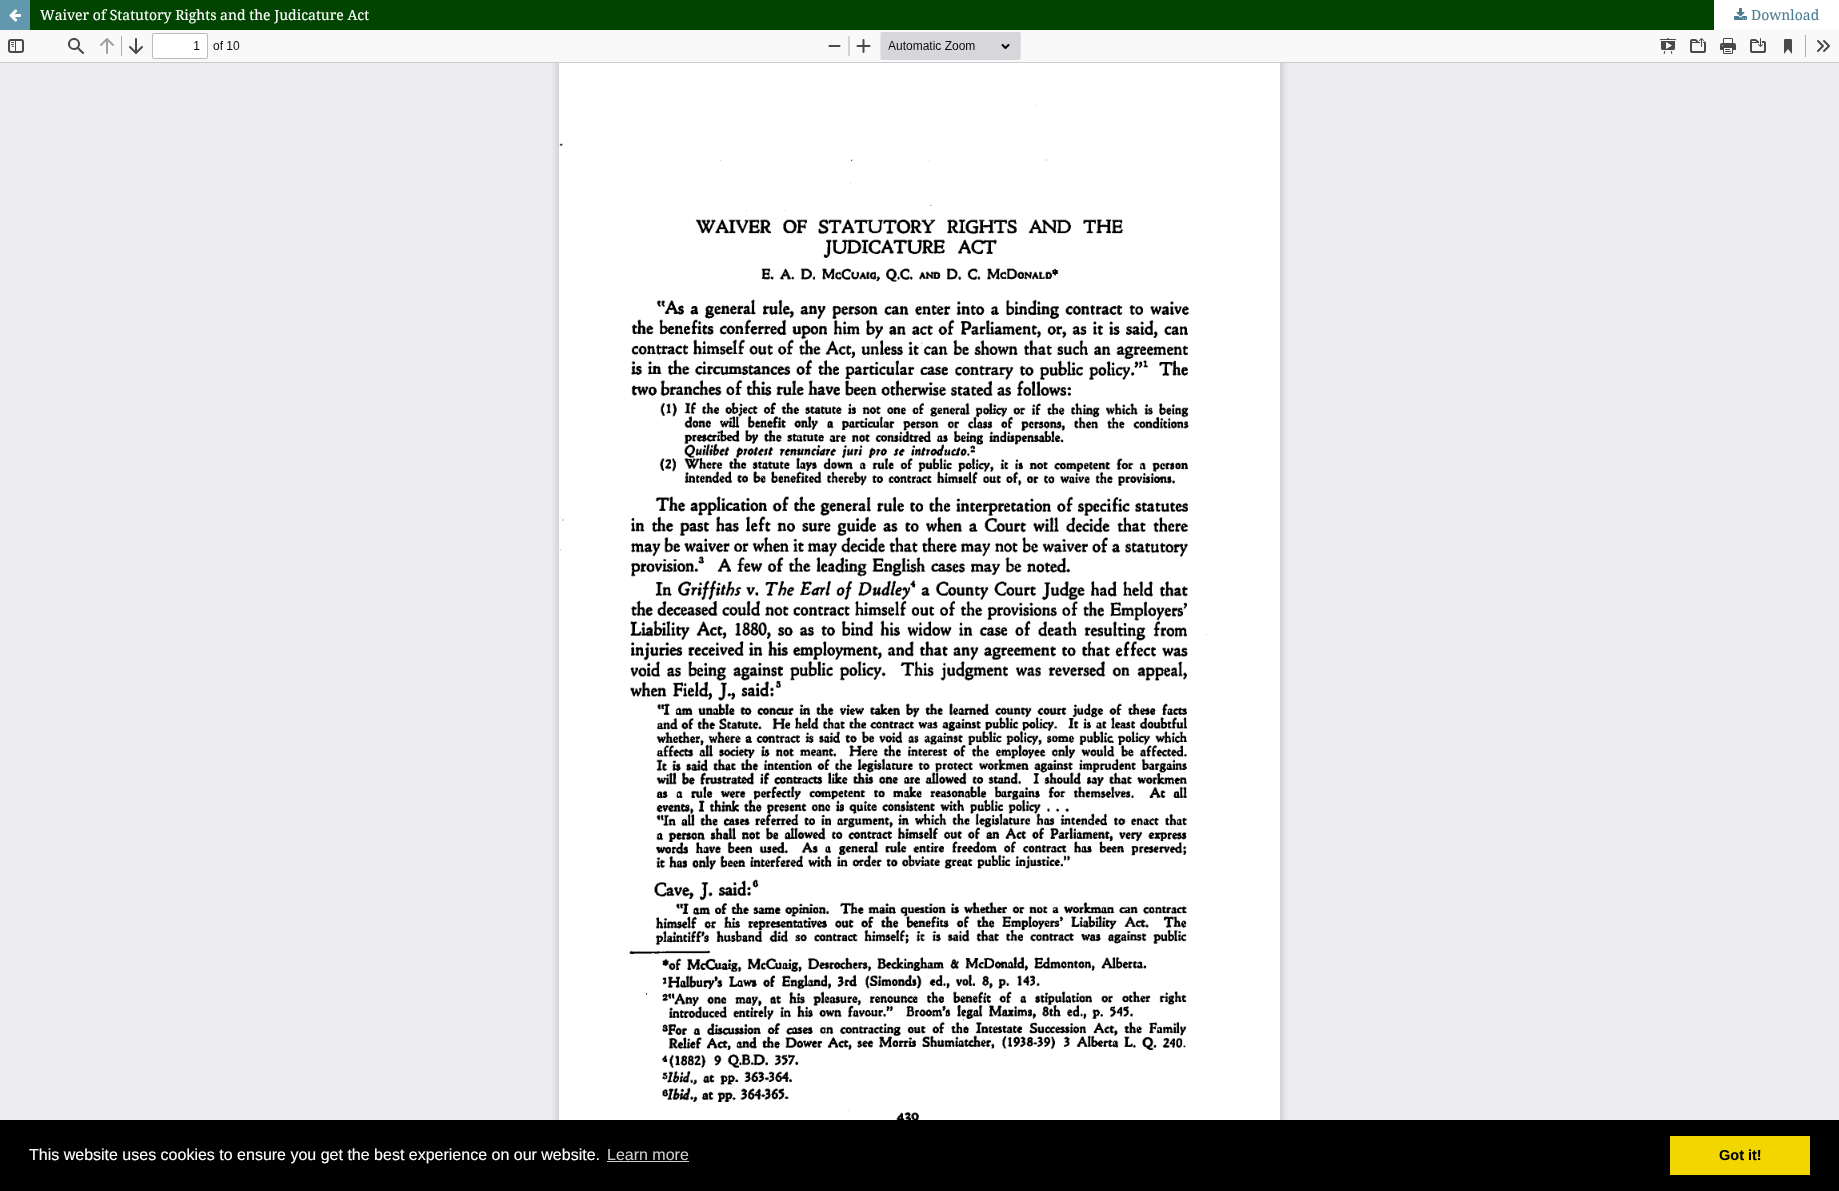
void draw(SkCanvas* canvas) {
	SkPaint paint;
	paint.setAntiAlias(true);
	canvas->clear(0xffffffff);
	paint.setColor(0xff004400);
	canvas->drawRect(SkRect::MakeXYWH(30, 0, 1684, 30), paint);
	paint.setColor(0xff6298ae);
	canvas->drawRect(SkRect::MakeXYWH(0, 0, 30, 30), paint);
	canvas->drawImageRect(SkImages::DeferredFromEncodedData(SkData::MakeFromFileName("img1.png")), SkRect::MakeXYWH(9, 9, 12, 13), SkSamplingOptions());
	SkFont f1(fontMgr->matchFamilyStyle("Noto Serif", SkFontStyle::Normal()), 14);
	f1.setSubpixel(true);
	paint.setColor(0xffffffff);
	canvas->drawString("Waiver of Statutory Rights and the Judicature Act", 40, 20, f1, paint);
	canvas->drawImageRect(SkImages::DeferredFromEncodedData(SkData::MakeFromFileName("img2.png")), SkRect::MakeXYWH(1734, 8, 13, 12), SkSamplingOptions());
	paint.setColor(0xff4b7d92);
	canvas->drawString("Download", 1751, 20, f1, paint);
	canvas->drawImageRect(SkImages::DeferredFromEncodedData(SkData::MakeFromFileName("img3.png")), SkRect::MakeXYWH(0, 30, 1839, 1090), SkSamplingOptions());
	paint.setColor(0xff000000);
	canvas->drawRect(SkRect::MakeXYWH(0, 1120, 1839, 71), paint);
	SkFont f2(fontMgr->matchFamilyStyle("Liberation Sans", SkFontStyle::Normal()), 16);
	f2.setSubpixel(true);
	paint.setColor(0xffffffff);
	canvas->drawString("This website uses cookies to ensure you get the best experience on our website.", 29, 1160, f2, paint);
	paint.setColor(0xffcccccc);
	canvas->drawString("Learn more", 607, 1160, f2, paint);
	canvas->drawRect(SkRect::MakeXYWH(607, 1161, 82, 1), paint);
	paint.setColor(0xfff1d600);
	canvas->drawRect(SkRect::MakeXYWH(1670, 1136, 140, 39), paint);
	SkFont f3(fontMgr->matchFamilyStyle("Liberation Sans", SkFontStyle::Bold()), 14.5);
	f3.setSubpixel(true);
	paint.setColor(0xff000000);
	canvas->drawString("Got it!", 1719, 1160, f3, paint);
}
